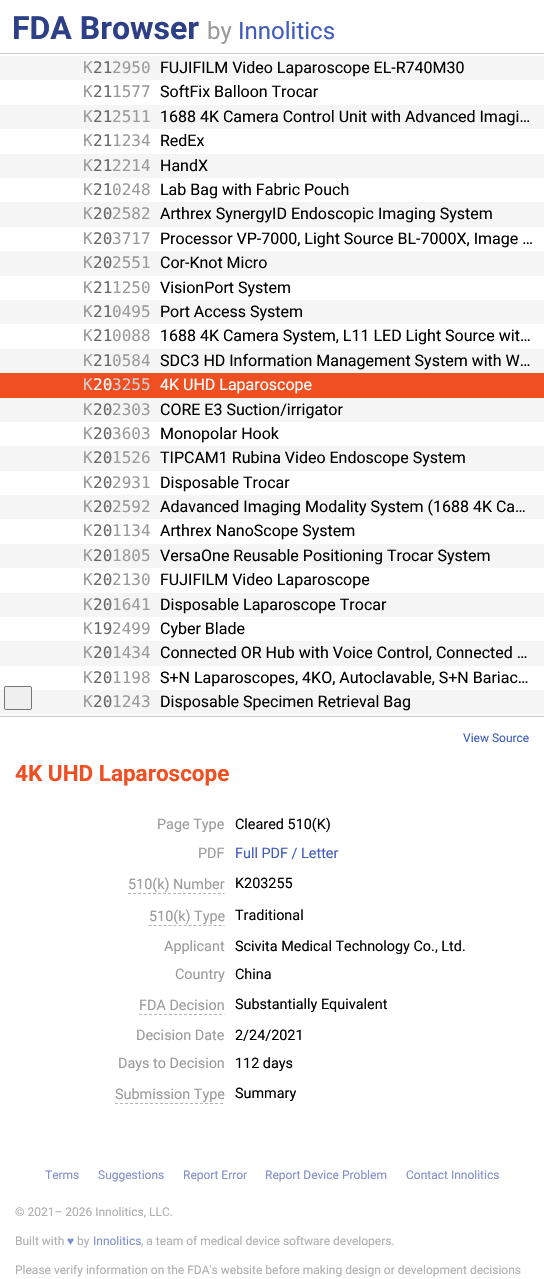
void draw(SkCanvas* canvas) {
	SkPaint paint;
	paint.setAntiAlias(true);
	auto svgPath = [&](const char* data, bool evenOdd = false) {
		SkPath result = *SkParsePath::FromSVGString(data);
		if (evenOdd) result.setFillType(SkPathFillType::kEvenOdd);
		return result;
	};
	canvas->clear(0xffffffff);
	paint.setColor(0xffcccccc);
	canvas->drawRect(SkRect::MakeXYWH(0, 53, 544, 1), paint);
	SkFont f1(fontMgr->matchFamilyStyle("Roboto", SkFontStyle::Bold()), 32);
	f1.setSubpixel(true);
	paint.setColor(0xff2d4087);
	canvas->drawString("FDA Browser", 12, 39, f1, paint);
	SkFont f2(fontMgr->matchFamilyStyle("Roboto", SkFontStyle::Normal()), 24);
	f2.setSubpixel(true);
	paint.setColor(0xff9b9b9b);
	canvas->drawString("by", 207, 39, f2, paint);
	paint.setColor(0xff415cc0);
	canvas->drawString("Innolitics", 238, 39, f2, paint);
	paint.setColor(0xfff5f5f5);
	canvas->drawRect(SkRect::MakeXYWH(0, 56, 544, 659), paint);
	SkFont f3(fontMgr->matchFamilyStyle("DejaVu Sans Mono", SkFontStyle::Normal()), 16);
	f3.setSubpixel(true);
	paint.setColor(0xff9b9b9b);
	canvas->drawString("K", 83, 73, f3, paint);
	paint.setColor(0xff686868);
	canvas->drawString("21", 93, 73, f3, paint);
	paint.setColor(0xff9b9b9b);
	canvas->drawString("2950", 112, 73, f3, paint);
	SkFont f4(fontMgr->matchFamilyStyle("Roboto", SkFontStyle::Normal()), 16);
	f4.setSubpixel(true);
	paint.setColor(0xff000000);
	canvas->drawString("FUJIFILM Video Laparoscope EL-R740M30", 160, 73, f4, paint);
	paint.setColor(0xffffffff);
	canvas->drawRect(SkRect::MakeXYWH(0, 80, 544, 25), paint);
	paint.setColor(0xff9b9b9b);
	canvas->drawString("K", 83, 97, f3, paint);
	paint.setColor(0xff686868);
	canvas->drawString("21", 93, 97, f3, paint);
	paint.setColor(0xff9b9b9b);
	canvas->drawString("1577", 112, 97, f3, paint);
	paint.setColor(0xff000000);
	canvas->drawString("SoftFix Balloon Trocar", 160, 97, f4, paint);
	paint.setColor(0xff9b9b9b);
	canvas->drawString("K", 83, 122, f3, paint);
	paint.setColor(0xff686868);
	canvas->drawString("21", 93, 122, f3, paint);
	paint.setColor(0xff9b9b9b);
	canvas->drawString("2511", 112, 122, f3, paint);
	paint.setColor(0xff000000);
	canvas->drawString("1688 4K Camera Control Unit with Advanced Imagi…", 160, 122, f4, paint);
	paint.setColor(0xffffffff);
	canvas->drawRect(SkRect::MakeXYWH(0, 129, 544, 25), paint);
	paint.setColor(0xff9b9b9b);
	canvas->drawString("K", 83, 146, f3, paint);
	paint.setColor(0xff686868);
	canvas->drawString("21", 93, 146, f3, paint);
	paint.setColor(0xff9b9b9b);
	canvas->drawString("1234", 112, 146, f3, paint);
	paint.setColor(0xff000000);
	canvas->drawString("RedEx", 160, 146, f4, paint);
	paint.setColor(0xff9b9b9b);
	canvas->drawString("K", 83, 171, f3, paint);
	paint.setColor(0xff686868);
	canvas->drawString("21", 93, 171, f3, paint);
	paint.setColor(0xff9b9b9b);
	canvas->drawString("2214", 112, 171, f3, paint);
	paint.setColor(0xff000000);
	canvas->drawString("HandX", 160, 171, f4, paint);
	paint.setColor(0xffffffff);
	canvas->drawRect(SkRect::MakeXYWH(0, 178, 544, 24), paint);
	paint.setColor(0xff9b9b9b);
	canvas->drawString("K", 83, 195, f3, paint);
	paint.setColor(0xff686868);
	canvas->drawString("21", 93, 195, f3, paint);
	paint.setColor(0xff9b9b9b);
	canvas->drawString("0248", 112, 195, f3, paint);
	paint.setColor(0xff000000);
	canvas->drawString("Lab Bag with Fabric Pouch", 160, 195, f4, paint);
	paint.setColor(0xff9b9b9b);
	canvas->drawString("K", 83, 219, f3, paint);
	paint.setColor(0xff686868);
	canvas->drawString("20", 93, 219, f3, paint);
	paint.setColor(0xff9b9b9b);
	canvas->drawString("2582", 112, 219, f3, paint);
	paint.setColor(0xff000000);
	canvas->drawString("Arthrex SynergyID Endoscopic Imaging System", 160, 219, f4, paint);
	paint.setColor(0xffffffff);
	canvas->drawRect(SkRect::MakeXYWH(0, 227, 544, 24), paint);
	paint.setColor(0xff9b9b9b);
	canvas->drawString("K", 83, 244, f3, paint);
	paint.setColor(0xff686868);
	canvas->drawString("20", 93, 244, f3, paint);
	paint.setColor(0xff9b9b9b);
	canvas->drawString("3717", 112, 244, f3, paint);
	paint.setColor(0xff000000);
	canvas->drawString("Processor VP-7000, Light Source BL-7000X, Image …", 160, 244, f4, paint);
	paint.setColor(0xff9b9b9b);
	canvas->drawString("K", 83, 268, f3, paint);
	paint.setColor(0xff686868);
	canvas->drawString("20", 93, 268, f3, paint);
	paint.setColor(0xff9b9b9b);
	canvas->drawString("2551", 112, 268, f3, paint);
	paint.setColor(0xff000000);
	canvas->drawString("Cor-Knot Micro", 160, 268, f4, paint);
	paint.setColor(0xffffffff);
	canvas->drawRect(SkRect::MakeXYWH(0, 276, 544, 24), paint);
	paint.setColor(0xff9b9b9b);
	canvas->drawString("K", 83, 293, f3, paint);
	paint.setColor(0xff686868);
	canvas->drawString("21", 93, 293, f3, paint);
	paint.setColor(0xff9b9b9b);
	canvas->drawString("1250", 112, 293, f3, paint);
	paint.setColor(0xff000000);
	canvas->drawString("VisionPort System", 160, 293, f4, paint);
	paint.setColor(0xff9b9b9b);
	canvas->drawString("K", 83, 317, f3, paint);
	paint.setColor(0xff686868);
	canvas->drawString("21", 93, 317, f3, paint);
	paint.setColor(0xff9b9b9b);
	canvas->drawString("0495", 112, 317, f3, paint);
	paint.setColor(0xff000000);
	canvas->drawString("Port Access System", 160, 317, f4, paint);
	paint.setColor(0xffffffff);
	canvas->drawRect(SkRect::MakeXYWH(0, 324, 544, 25), paint);
	paint.setColor(0xff9b9b9b);
	canvas->drawString("K", 83, 341, f3, paint);
	paint.setColor(0xff686868);
	canvas->drawString("21", 93, 341, f3, paint);
	paint.setColor(0xff9b9b9b);
	canvas->drawString("0088", 112, 341, f3, paint);
	paint.setColor(0xff000000);
	canvas->drawString("1688 4K Camera System, L11 LED Light Source wit…", 160, 341, f4, paint);
	paint.setColor(0xff9b9b9b);
	canvas->drawString("K", 83, 366, f3, paint);
	paint.setColor(0xff686868);
	canvas->drawString("21", 93, 366, f3, paint);
	paint.setColor(0xff9b9b9b);
	canvas->drawString("0584", 112, 366, f3, paint);
	paint.setColor(0xff000000);
	canvas->drawString("SDC3 HD Information Management System with W…", 160, 366, f4, paint);
	paint.setColor(0xfff04f22);
	canvas->drawRect(SkRect::MakeXYWH(0, 373, 544, 25), paint);
	paint.setColor(0xffcecece);
	canvas->drawString("K", 83, 390, f3, paint);
	paint.setColor(0xffffffff);
	canvas->drawString("20", 93, 390, f3, paint);
	paint.setColor(0xffcecece);
	canvas->drawString("3255", 112, 390, f3, paint);
	paint.setColor(0xffffffff);
	canvas->drawString("4K UHD Laparoscope", 160, 390, f4, paint);
	paint.setColor(0xff9b9b9b);
	canvas->drawString("K", 83, 415, f3, paint);
	paint.setColor(0xff686868);
	canvas->drawString("20", 93, 415, f3, paint);
	paint.setColor(0xff9b9b9b);
	canvas->drawString("2303", 112, 415, f3, paint);
	paint.setColor(0xff000000);
	canvas->drawString("CORE E3 Suction/irrigator", 160, 415, f4, paint);
	paint.setColor(0xffffffff);
	canvas->drawRect(SkRect::MakeXYWH(0, 422, 544, 24), paint);
	paint.setColor(0xff9b9b9b);
	canvas->drawString("K", 83, 439, f3, paint);
	paint.setColor(0xff686868);
	canvas->drawString("20", 93, 439, f3, paint);
	paint.setColor(0xff9b9b9b);
	canvas->drawString("3603", 112, 439, f3, paint);
	paint.setColor(0xff000000);
	canvas->drawString("Monopolar Hook", 160, 439, f4, paint);
	paint.setColor(0xff9b9b9b);
	canvas->drawString("K", 83, 463, f3, paint);
	paint.setColor(0xff686868);
	canvas->drawString("20", 93, 463, f3, paint);
	paint.setColor(0xff9b9b9b);
	canvas->drawString("1526", 112, 463, f3, paint);
	paint.setColor(0xff000000);
	canvas->drawString("TIPCAM1 Rubina Video Endoscope System", 160, 463, f4, paint);
	paint.setColor(0xffffffff);
	canvas->drawRect(SkRect::MakeXYWH(0, 471, 544, 24), paint);
	paint.setColor(0xff9b9b9b);
	canvas->drawString("K", 83, 488, f3, paint);
	paint.setColor(0xff686868);
	canvas->drawString("20", 93, 488, f3, paint);
	paint.setColor(0xff9b9b9b);
	canvas->drawString("2931", 112, 488, f3, paint);
	paint.setColor(0xff000000);
	canvas->drawString("Disposable Trocar", 160, 488, f4, paint);
	paint.setColor(0xff9b9b9b);
	canvas->drawString("K", 83, 512, f3, paint);
	paint.setColor(0xff686868);
	canvas->drawString("20", 93, 512, f3, paint);
	paint.setColor(0xff9b9b9b);
	canvas->drawString("2592", 112, 512, f3, paint);
	paint.setColor(0xff000000);
	canvas->drawString("Adavanced Imaging Modality System (1688 4K Ca…", 160, 512, f4, paint);
	paint.setColor(0xffffffff);
	canvas->drawRect(SkRect::MakeXYWH(0, 519, 544, 25), paint);
	paint.setColor(0xff9b9b9b);
	canvas->drawString("K", 83, 536, f3, paint);
	paint.setColor(0xff686868);
	canvas->drawString("20", 93, 536, f3, paint);
	paint.setColor(0xff9b9b9b);
	canvas->drawString("1134", 112, 536, f3, paint);
	paint.setColor(0xff000000);
	canvas->drawString("Arthrex NanoScope System", 160, 536, f4, paint);
	paint.setColor(0xff9b9b9b);
	canvas->drawString("K", 83, 561, f3, paint);
	paint.setColor(0xff686868);
	canvas->drawString("20", 93, 561, f3, paint);
	paint.setColor(0xff9b9b9b);
	canvas->drawString("1805", 112, 561, f3, paint);
	paint.setColor(0xff000000);
	canvas->drawString("VersaOne Reusable Positioning Trocar System", 160, 561, f4, paint);
	paint.setColor(0xffffffff);
	canvas->drawRect(SkRect::MakeXYWH(0, 568, 544, 25), paint);
	paint.setColor(0xff9b9b9b);
	canvas->drawString("K", 83, 585, f3, paint);
	paint.setColor(0xff686868);
	canvas->drawString("20", 93, 585, f3, paint);
	paint.setColor(0xff9b9b9b);
	canvas->drawString("2130", 112, 585, f3, paint);
	paint.setColor(0xff000000);
	canvas->drawString("FUJIFILM Video Laparoscope", 160, 585, f4, paint);
	paint.setColor(0xff9b9b9b);
	canvas->drawString("K", 83, 610, f3, paint);
	paint.setColor(0xff686868);
	canvas->drawString("20", 93, 610, f3, paint);
	paint.setColor(0xff9b9b9b);
	canvas->drawString("1641", 112, 610, f3, paint);
	paint.setColor(0xff000000);
	canvas->drawString("Disposable Laparoscope Trocar", 160, 610, f4, paint);
	paint.setColor(0xffffffff);
	canvas->drawRect(SkRect::MakeXYWH(0, 617, 544, 24), paint);
	paint.setColor(0xff9b9b9b);
	canvas->drawString("K", 83, 634, f3, paint);
	paint.setColor(0xff686868);
	canvas->drawString("19", 93, 634, f3, paint);
	paint.setColor(0xff9b9b9b);
	canvas->drawString("2499", 112, 634, f3, paint);
	paint.setColor(0xff000000);
	canvas->drawString("Cyber Blade", 160, 634, f4, paint);
	paint.setColor(0xff9b9b9b);
	canvas->drawString("K", 83, 658, f3, paint);
	paint.setColor(0xff686868);
	canvas->drawString("20", 93, 658, f3, paint);
	paint.setColor(0xff9b9b9b);
	canvas->drawString("1434", 112, 658, f3, paint);
	paint.setColor(0xff000000);
	canvas->drawString("Connected OR Hub with Voice Control, Connected …", 160, 658, f4, paint);
	paint.setColor(0xffffffff);
	canvas->drawRect(SkRect::MakeXYWH(0, 666, 544, 24), paint);
	paint.setColor(0xff9b9b9b);
	canvas->drawString("K", 83, 683, f3, paint);
	paint.setColor(0xff686868);
	canvas->drawString("20", 93, 683, f3, paint);
	paint.setColor(0xff9b9b9b);
	canvas->drawString("1198", 112, 683, f3, paint);
	paint.setColor(0xff000000);
	canvas->drawString("S+N Laparoscopes, 4KO, Autoclavable, S+N Bariac…", 160, 683, f4, paint);
	paint.setColor(0xff9b9b9b);
	canvas->drawString("K", 83, 707, f3, paint);
	paint.setColor(0xff686868);
	canvas->drawString("20", 93, 707, f3, paint);
	paint.setColor(0xff9b9b9b);
	canvas->drawString("1243", 112, 707, f3, paint);
	paint.setColor(0xff000000);
	canvas->drawString("Disposable Specimen Retrieval Bag", 160, 707, f4, paint);
	paint.setColor(0xffcccccc);
	canvas->drawRect(SkRect::MakeXYWH(0, 716, 544, 1), paint);
	paint.setColor(0xffefefef);
	canvas->drawRoundRect(SkRect::MakeXYWH(4.5, 686.5, 27, 23), 1.5, 1.5, paint);
	paint.setStroke(true);
	paint.setStrokeWidth(1);
	paint.setColor(0xff767676);
	canvas->drawRoundRect(SkRect::MakeXYWH(4.5, 686.5, 27, 23), 1.5, 1.5, paint);
	SkFont f5(fontMgr->matchFamilyStyle("Roboto", SkFontStyle::Normal()), 12);
	f5.setSubpixel(true);
	paint.setStroke(false);
	paint.setColor(0xff415cc0);
	canvas->drawString("View Source", 463, 742, f5, paint);
	SkFont f6(fontMgr->matchFamilyStyle("Roboto", SkFontStyle::Bold()), 22.5);
	f6.setSubpixel(true);
	paint.setColor(0xfff04f22);
	canvas->drawString("4K UHD Laparoscope", 15, 781, f6, paint);
	SkFont f7(fontMgr->matchFamilyStyle("Roboto", SkFontStyle::Normal()), 14.4);
	f7.setSubpixel(true);
	paint.setColor(0xff9b9b9b);
	canvas->drawString("Page Type", 157, 829, f7, paint);
	paint.setColor(0xff000000);
	canvas->drawString("Cleared 510(K)", 235, 829, f7, paint);
	paint.setColor(0xff9b9b9b);
	canvas->drawString("PDF", 198, 858, f7, paint);
	paint.setColor(0xff415cc0);
	canvas->drawString("Full PDF / Letter", 235, 858, f7, paint);
	paint.setColor(0xff9b9b9b);
	canvas->drawString("510(k) Number", 128, 889, f7, paint);
	paint.setStroke(true);
	paint.setColor(0xffb5b5b5);
	paint.setPathEffect(SkDashPathEffect::Make({{3, 2}}, 0));
	canvas->drawPath(svgPath("M128 893.5H224.5"), paint);
	paint.setPathEffect(nullptr);
	paint.setStroke(false);
	paint.setColor(0xff000000);
	canvas->drawString("K203255", 235, 888, f7, paint);
	paint.setColor(0xff9b9b9b);
	canvas->drawString("510(k) Type", 149, 921, f7, paint);
	paint.setStroke(true);
	paint.setColor(0xffb5b5b5);
	paint.setPathEffect(SkDashPathEffect::Make({{3, 2}}, 0));
	canvas->drawPath(svgPath("M148.5 925.5H224.5"), paint);
	paint.setPathEffect(nullptr);
	paint.setStroke(false);
	paint.setColor(0xff000000);
	canvas->drawString("Traditional", 235, 920, f7, paint);
	paint.setColor(0xff9b9b9b);
	canvas->drawString("Applicant", 164, 951, f7, paint);
	paint.setColor(0xff000000);
	canvas->drawString("Scivita Medical Technology Co., Ltd.", 235, 951, f7, paint);
	paint.setColor(0xff9b9b9b);
	canvas->drawString("Country", 175, 979, f7, paint);
	paint.setColor(0xff000000);
	canvas->drawString("China", 235, 979, f7, paint);
	paint.setColor(0xff9b9b9b);
	canvas->drawString("FDA Decision", 139, 1010, f7, paint);
	paint.setStroke(true);
	paint.setColor(0xffb5b5b5);
	paint.setPathEffect(SkDashPathEffect::Make({{3, 2}}, 0));
	canvas->drawPath(svgPath("M139 1014.5H224.5"), paint);
	paint.setPathEffect(nullptr);
	paint.setStroke(false);
	paint.setColor(0xff000000);
	canvas->drawString("Substantially Equivalent", 235, 1009, f7, paint);
	paint.setColor(0xff9b9b9b);
	canvas->drawString("Decision Date", 136, 1040, f7, paint);
	paint.setColor(0xff000000);
	canvas->drawString("2/24/2021", 235, 1040, f7, paint);
	paint.setColor(0xff9b9b9b);
	canvas->drawString("Days to Decision", 118, 1068, f7, paint);
	paint.setColor(0xff000000);
	canvas->drawString("112 days", 235, 1068, f7, paint);
	paint.setColor(0xff9b9b9b);
	canvas->drawString("Submission Type", 115, 1099, f7, paint);
	paint.setStroke(true);
	paint.setColor(0xffb5b5b5);
	paint.setPathEffect(SkDashPathEffect::Make({{3, 2}}, 0));
	canvas->drawPath(svgPath("M115 1103.5H224.5"), paint);
	paint.setPathEffect(nullptr);
	paint.setStroke(false);
	paint.setColor(0xff000000);
	canvas->drawString("Summary", 235, 1098, f7, paint);
	paint.setColor(0xff8090cd);
	canvas->drawString("Terms", 45, 1179, f5, paint);
	canvas->drawString("Suggestions", 98, 1179, f5, paint);
	canvas->drawString("Report Error", 183, 1179, f5, paint);
	canvas->drawString("Report Device Problem", 265, 1179, f5, paint);
	canvas->drawString("Contact Innolitics", 406, 1179, f5, paint);
	paint.setColor(0xffafafaf);
	canvas->drawString("© 2021– 2026 Innolitics, LLC.", 15, 1216, f5, paint);
	canvas->drawString("Built with", 15, 1245, f5, paint);
	SkFont f8(fontMgr->matchFamilyStyle("Liberation Sans", SkFontStyle::Normal()), 12);
	f8.setSubpixel(true);
	paint.setColor(0xff8090cd);
	canvas->drawString("♥", 67, 1245, f8, paint);
	paint.setColor(0xffafafaf);
	canvas->drawString("by", 77, 1245, f5, paint);
	paint.setColor(0xff8090cd);
	canvas->drawString("Innolitics", 93, 1245, f5, paint);
	paint.setColor(0xffafafaf);
	canvas->drawString(", a team of medical device software developers.", 141, 1245, f5, paint);
	canvas->drawString("Please verify information on the FDA's website before making design or development decisions", 15, 1274, f5, paint);
}
